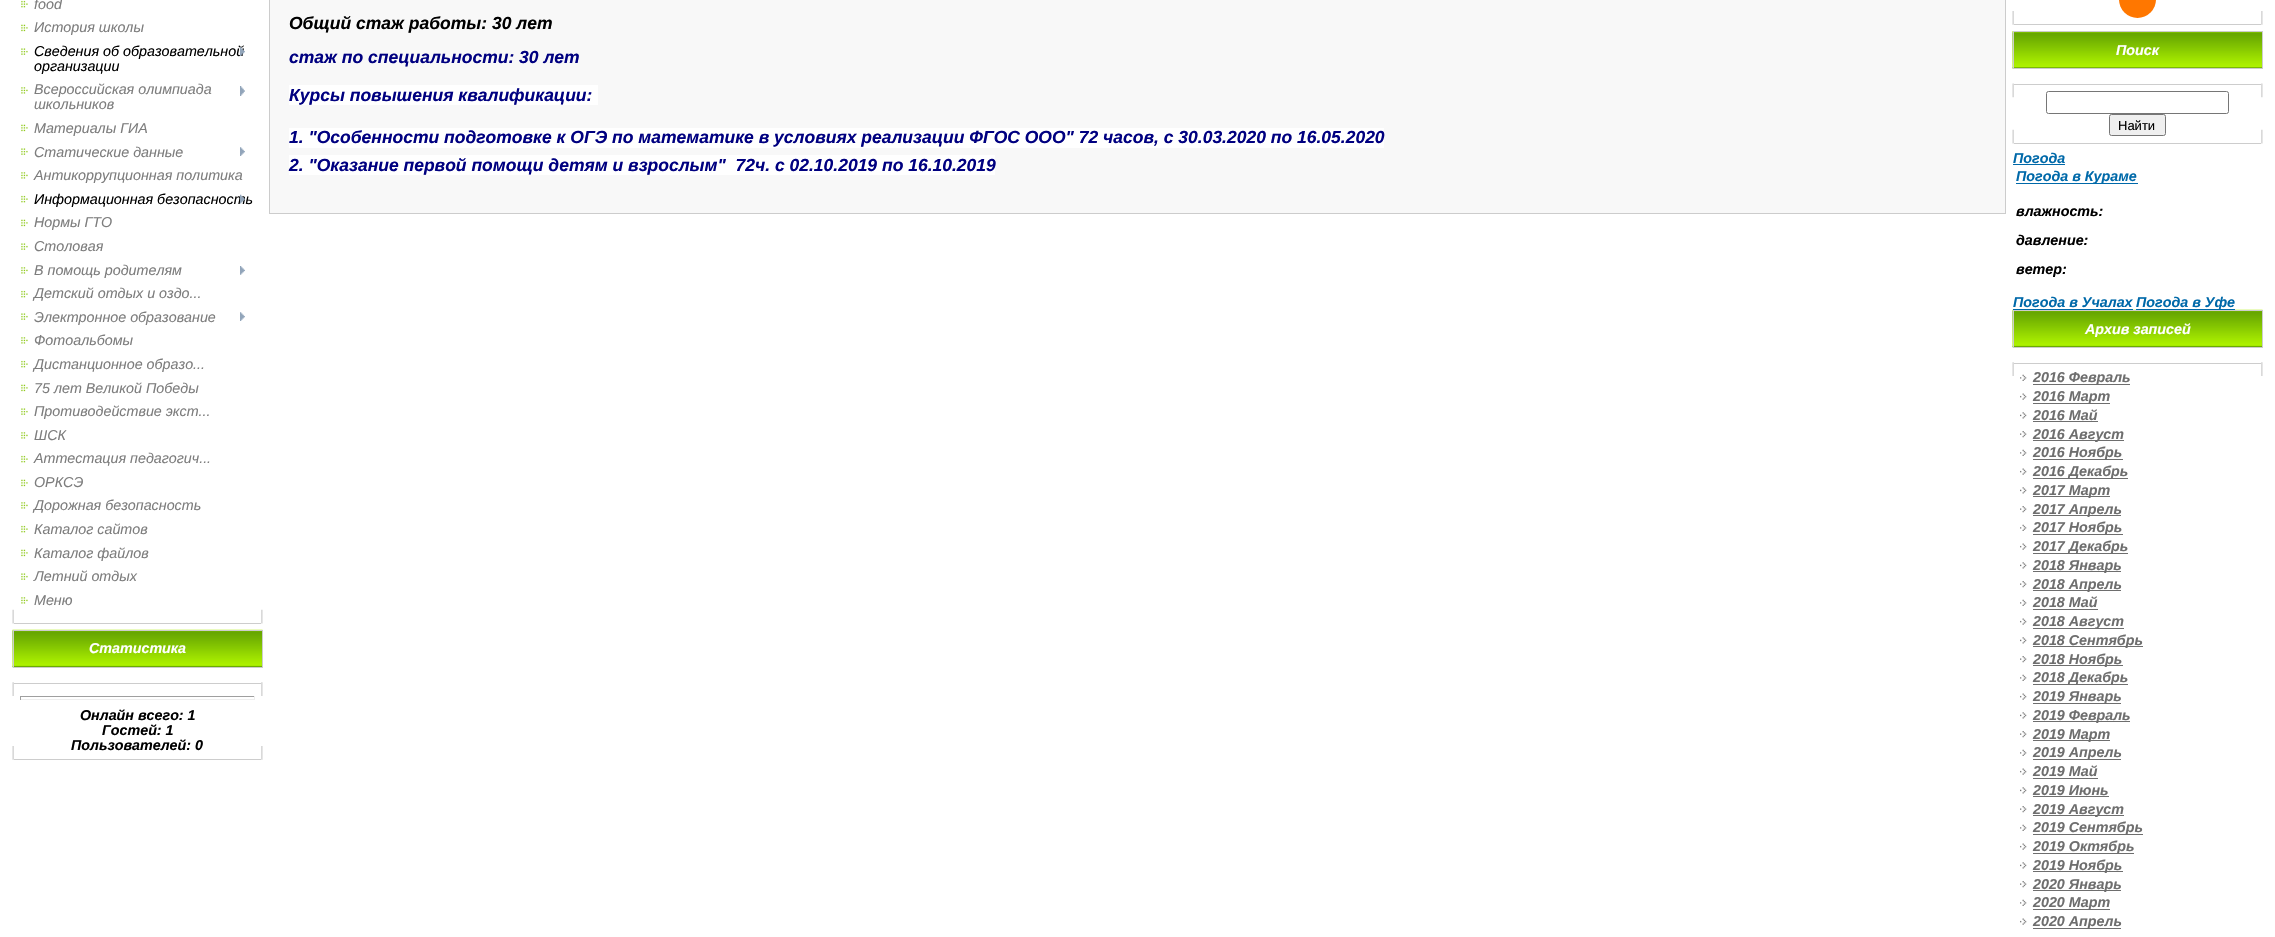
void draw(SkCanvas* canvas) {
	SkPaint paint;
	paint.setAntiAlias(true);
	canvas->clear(0xffffffff);
	paint.setColor(0xffcdcdcd);
	canvas->drawRect(SkRect::MakeXYWH(14, 623, 247, 1), paint);
	canvas->drawImageRect(SkImages::DeferredFromEncodedData(SkData::MakeFromFileName("img1.png")), SkRect::MakeXYWH(21, 0, 7, 8), SkSamplingOptions());
	SkFont f1(fontMgr->matchFamilyStyle("Liberation Sans", SkFontStyle::Italic()), 14.3);
	f1.setSubpixel(true);
	paint.setColor(0xff7d7d7d);
	canvas->drawString("food", 34, 9, f1, paint);
	canvas->drawImageRect(SkImages::DeferredFromEncodedData(SkData::MakeFromFileName("img2.png")), SkRect::MakeXYWH(21, 24, 7, 8), SkSamplingOptions());
	canvas->drawString("История школы", 34, 32, f1, paint);
	canvas->drawImageRect(SkImages::DeferredFromEncodedData(SkData::MakeFromFileName("img3.png")), SkRect::MakeXYWH(21, 48, 7, 7), SkSamplingOptions());
	paint.setColor(0xff000000);
	canvas->drawString("Сведения об образовательной", 34, 56, f1, paint);
	canvas->drawImageRect(SkImages::DeferredFromEncodedData(SkData::MakeFromFileName("img4.png")), SkRect::MakeXYWH(240, 47, 5, 9), SkSamplingOptions());
	canvas->drawString("организации", 34, 71, f1, paint);
	canvas->drawImageRect(SkImages::DeferredFromEncodedData(SkData::MakeFromFileName("img5.png")), SkRect::MakeXYWH(21, 87, 7, 7), SkSamplingOptions());
	paint.setColor(0xff7d7d7d);
	canvas->drawString("Всероссийская олимпиада", 34, 94, f1, paint);
	canvas->drawImageRect(SkImages::DeferredFromEncodedData(SkData::MakeFromFileName("img6.png")), SkRect::MakeXYWH(240, 86, 5, 10), SkSamplingOptions());
	canvas->drawString("школьников", 34, 109, f1, paint);
	canvas->drawImageRect(SkImages::DeferredFromEncodedData(SkData::MakeFromFileName("img2.png")), SkRect::MakeXYWH(21, 124, 7, 8), SkSamplingOptions());
	canvas->drawString("Материалы ГИА", 34, 133, f1, paint);
	canvas->drawImageRect(SkImages::DeferredFromEncodedData(SkData::MakeFromFileName("img3.png")), SkRect::MakeXYWH(21, 148, 7, 7), SkSamplingOptions());
	canvas->drawString("Статические данные", 34, 157, f1, paint);
	canvas->drawImageRect(SkImages::DeferredFromEncodedData(SkData::MakeFromFileName("img7.png")), SkRect::MakeXYWH(240, 147, 5, 9), SkSamplingOptions());
	canvas->drawImageRect(SkImages::DeferredFromEncodedData(SkData::MakeFromFileName("img5.png")), SkRect::MakeXYWH(21, 172, 7, 7), SkSamplingOptions());
	canvas->drawString("Антикоррупционная политика", 34, 180, f1, paint);
	canvas->drawImageRect(SkImages::DeferredFromEncodedData(SkData::MakeFromFileName("img1.png")), SkRect::MakeXYWH(21, 195, 7, 8), SkSamplingOptions());
	paint.setColor(0xff000000);
	canvas->drawString("Информационная безопасность", 34, 204, f1, paint);
	canvas->drawImageRect(SkImages::DeferredFromEncodedData(SkData::MakeFromFileName("img8.png")), SkRect::MakeXYWH(240, 194, 5, 10), SkSamplingOptions());
	canvas->drawImageRect(SkImages::DeferredFromEncodedData(SkData::MakeFromFileName("img2.png")), SkRect::MakeXYWH(21, 219, 7, 8), SkSamplingOptions());
	paint.setColor(0xff7d7d7d);
	canvas->drawString("Нормы ГТО", 34, 227, f1, paint);
	canvas->drawImageRect(SkImages::DeferredFromEncodedData(SkData::MakeFromFileName("img3.png")), SkRect::MakeXYWH(21, 243, 7, 7), SkSamplingOptions());
	canvas->drawString("Столовая", 34, 251, f1, paint);
	canvas->drawImageRect(SkImages::DeferredFromEncodedData(SkData::MakeFromFileName("img5.png")), SkRect::MakeXYWH(21, 267, 7, 7), SkSamplingOptions());
	canvas->drawString("В помощь родителям", 34, 275, f1, paint);
	canvas->drawImageRect(SkImages::DeferredFromEncodedData(SkData::MakeFromFileName("img9.png")), SkRect::MakeXYWH(240, 266, 5, 9), SkSamplingOptions());
	canvas->drawImageRect(SkImages::DeferredFromEncodedData(SkData::MakeFromFileName("img1.png")), SkRect::MakeXYWH(21, 290, 7, 8), SkSamplingOptions());
	canvas->drawString("Детский отдых и оздо...", 34, 298, f1, paint);
	canvas->drawImageRect(SkImages::DeferredFromEncodedData(SkData::MakeFromFileName("img3.png")), SkRect::MakeXYWH(21, 313, 7, 7), SkSamplingOptions());
	canvas->drawString("Электронное образование", 34, 322, f1, paint);
	canvas->drawImageRect(SkImages::DeferredFromEncodedData(SkData::MakeFromFileName("img7.png")), SkRect::MakeXYWH(240, 312, 5, 9), SkSamplingOptions());
	canvas->drawImageRect(SkImages::DeferredFromEncodedData(SkData::MakeFromFileName("img5.png")), SkRect::MakeXYWH(21, 337, 7, 7), SkSamplingOptions());
	canvas->drawString("Фотоальбомы", 34, 345, f1, paint);
	canvas->drawImageRect(SkImages::DeferredFromEncodedData(SkData::MakeFromFileName("img1.png")), SkRect::MakeXYWH(21, 360, 7, 8), SkSamplingOptions());
	canvas->drawString("Дистанционное образо...", 34, 369, f1, paint);
	canvas->drawImageRect(SkImages::DeferredFromEncodedData(SkData::MakeFromFileName("img2.png")), SkRect::MakeXYWH(21, 384, 7, 8), SkSamplingOptions());
	canvas->drawString("75 лет Великой Победы", 34, 393, f1, paint);
	canvas->drawImageRect(SkImages::DeferredFromEncodedData(SkData::MakeFromFileName("img3.png")), SkRect::MakeXYWH(21, 408, 7, 7), SkSamplingOptions());
	canvas->drawString("Противодействие экст...", 34, 416, f1, paint);
	canvas->drawImageRect(SkImages::DeferredFromEncodedData(SkData::MakeFromFileName("img5.png")), SkRect::MakeXYWH(21, 432, 7, 7), SkSamplingOptions());
	canvas->drawString("ШСК", 34, 440, f1, paint);
	canvas->drawImageRect(SkImages::DeferredFromEncodedData(SkData::MakeFromFileName("img1.png")), SkRect::MakeXYWH(21, 455, 7, 8), SkSamplingOptions());
	canvas->drawString("Аттестация педагогич...", 34, 463, f1, paint);
	canvas->drawImageRect(SkImages::DeferredFromEncodedData(SkData::MakeFromFileName("img2.png")), SkRect::MakeXYWH(21, 479, 7, 8), SkSamplingOptions());
	canvas->drawString("ОРКСЭ", 34, 487, f1, paint);
	canvas->drawImageRect(SkImages::DeferredFromEncodedData(SkData::MakeFromFileName("img5.png")), SkRect::MakeXYWH(21, 502, 7, 7), SkSamplingOptions());
	canvas->drawString("Дорожная безопасность", 34, 510, f1, paint);
	canvas->drawImageRect(SkImages::DeferredFromEncodedData(SkData::MakeFromFileName("img1.png")), SkRect::MakeXYWH(21, 525, 7, 8), SkSamplingOptions());
	canvas->drawString("Каталог сайтов", 34, 534, f1, paint);
	canvas->drawImageRect(SkImages::DeferredFromEncodedData(SkData::MakeFromFileName("img2.png")), SkRect::MakeXYWH(21, 549, 7, 8), SkSamplingOptions());
	canvas->drawString("Каталог файлов", 34, 558, f1, paint);
	canvas->drawImageRect(SkImages::DeferredFromEncodedData(SkData::MakeFromFileName("img3.png")), SkRect::MakeXYWH(21, 573, 7, 7), SkSamplingOptions());
	canvas->drawString("Летний отдых", 34, 581, f1, paint);
	canvas->drawImageRect(SkImages::DeferredFromEncodedData(SkData::MakeFromFileName("img5.png")), SkRect::MakeXYWH(21, 597, 7, 7), SkSamplingOptions());
	canvas->drawString("Меню", 34, 605, f1, paint);
	canvas->drawImageRect(SkImages::DeferredFromEncodedData(SkData::MakeFromFileName("img10.png")), SkRect::MakeXYWH(12, 609, 2, 15), SkSamplingOptions());
	canvas->drawImageRect(SkImages::DeferredFromEncodedData(SkData::MakeFromFileName("img11.png")), SkRect::MakeXYWH(261, 609, 2, 15), SkSamplingOptions());
	canvas->drawImageRect(SkImages::DeferredFromEncodedData(SkData::MakeFromFileName("img12.png")), SkRect::MakeXYWH(12, 629, 251, 39), SkSamplingOptions());
	paint.setStroke(true);
	paint.setStrokeWidth(1);
	paint.setColor(0xffcccccc);
	canvas->drawRect(SkRect::MakeXYWH(13.5, 630.5, 249, 37), paint);
	SkFont f2(fontMgr->matchFamilyStyle("Liberation Sans", SkFontStyle::BoldItalic()), 14.3);
	f2.setSubpixel(true);
	paint.setStroke(false);
	paint.setColor(0xffffffff);
	canvas->drawString("Статистика", 89, 653, f2, paint);
	canvas->drawImageRect(SkImages::DeferredFromEncodedData(SkData::MakeFromFileName("img13.png")), SkRect::MakeXYWH(12, 746, 2, 14), SkSamplingOptions());
	canvas->drawImageRect(SkImages::DeferredFromEncodedData(SkData::MakeFromFileName("img14.png")), SkRect::MakeXYWH(12, 682, 2, 14), SkSamplingOptions());
	paint.setColor(0xffcdcdcd);
	canvas->drawRect(SkRect::MakeXYWH(14, 683, 247, 1), paint);
	canvas->drawRect(SkRect::MakeXYWH(14, 759, 247, 1), paint);
	paint.setColor(0xff9f9f9f);
	canvas->drawRect(SkRect::MakeXYWH(20, 696, 235, 1), paint);
	paint.setColor(0xffeeeeee);
	canvas->drawRect(SkRect::MakeXYWH(254, 696, 1, 4), paint);
	canvas->drawRect(SkRect::MakeXYWH(20, 699, 235, 1), paint);
	paint.setColor(0xff9f9f9f);
	canvas->drawRect(SkRect::MakeXYWH(20, 696, 1, 4), paint);
	paint.setColor(0xff000000);
	canvas->drawString("Онлайн всего: 1", 80, 720, f2, paint);
	canvas->drawString("Гостей: 1", 102, 735, f2, paint);
	canvas->drawString("Пользователей: 0", 71, 750, f2, paint);
	canvas->drawImageRect(SkImages::DeferredFromEncodedData(SkData::MakeFromFileName("img15.png")), SkRect::MakeXYWH(261, 746, 2, 14), SkSamplingOptions());
	canvas->drawImageRect(SkImages::DeferredFromEncodedData(SkData::MakeFromFileName("img16.png")), SkRect::MakeXYWH(261, 682, 2, 14), SkSamplingOptions());
	paint.setStroke(true);
	paint.setColor(0xffcccccc);
	canvas->drawRect(SkRect::MakeXYWH(269.5, -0.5, 1736, 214), paint);
	paint.setStroke(false);
	paint.setColor(0xfff8f8f8);
	canvas->drawRect(SkRect::MakeXYWH(270, 0, 1735, 213), paint);
	SkFont f3(fontMgr->matchFamilyStyle("Liberation Sans", SkFontStyle::BoldItalic()), 17.5);
	f3.setSubpixel(true);
	paint.setColor(0xff000000);
	canvas->drawString("Общий стаж работы: 30 лет", 289, 29, f3, paint);
	paint.setColor(0xff000080);
	canvas->drawString("стаж по специальности: 30 лет", 289, 63, f3, paint);
	paint.setColor(0xffffffff);
	canvas->drawRect(SkRect::MakeXYWH(289, 85, 309, 20), paint);
	paint.setColor(0xff000080);
	canvas->drawString("Курсы повышения квалификации:", 289, 101, f3, paint);
	paint.setColor(0xffffffff);
	canvas->drawRect(SkRect::MakeXYWH(289, 128, 1095, 20), paint);
	paint.setColor(0xff000080);
	canvas->drawString("1. \"Особенности подготовке к ОГЭ по математике в условиях реализации ФГОС ООО\" 72 часов, с 30.03.2020 по 16.05.2020", 289, 143, f3, paint);
	paint.setColor(0xffffffff);
	canvas->drawRect(SkRect::MakeXYWH(289, 155, 706, 20), paint);
	paint.setColor(0xff000080);
	canvas->drawString("2. \"Оказание первой помощи детям и взрослым\"  72ч. с 02.10.2019 по 16.10.2019", 289, 171, f3, paint);
	canvas->drawImageRect(SkImages::DeferredFromEncodedData(SkData::MakeFromFileName("img13.png")), SkRect::MakeXYWH(2012, 11, 2, 14), SkSamplingOptions());
	paint.setColor(0xffcdcdcd);
	canvas->drawRect(SkRect::MakeXYWH(2014, 24, 247, 1), paint);
	paint.setColor(0xffff7700);
	canvas->drawCircle(2137.5, -0.5, 18.5, paint);
	canvas->drawImageRect(SkImages::DeferredFromEncodedData(SkData::MakeFromFileName("img15.png")), SkRect::MakeXYWH(2261, 11, 2, 14), SkSamplingOptions());
	canvas->drawImageRect(SkImages::DeferredFromEncodedData(SkData::MakeFromFileName("img17.png")), SkRect::MakeXYWH(2012, 31, 250, 38), SkSamplingOptions());
	paint.setStroke(true);
	paint.setColor(0xffcccccc);
	canvas->drawRect(SkRect::MakeXYWH(2013.5, 31.5, 249, 37), paint);
	paint.setStroke(false);
	paint.setColor(0xffffffff);
	canvas->drawString("Поиск", 2116, 55, f2, paint);
	canvas->drawImageRect(SkImages::DeferredFromEncodedData(SkData::MakeFromFileName("img10.png")), SkRect::MakeXYWH(2012, 129, 2, 15), SkSamplingOptions());
	canvas->drawImageRect(SkImages::DeferredFromEncodedData(SkData::MakeFromFileName("img18.png")), SkRect::MakeXYWH(2012, 83, 2, 15), SkSamplingOptions());
	paint.setColor(0xffcdcdcd);
	canvas->drawRect(SkRect::MakeXYWH(2014, 84, 247, 1), paint);
	canvas->drawRect(SkRect::MakeXYWH(2014, 143, 247, 1), paint);
	paint.setStroke(true);
	paint.setColor(0xff767676);
	canvas->drawRoundRect(SkRect::MakeXYWH(2046.5, 91.5, 182, 22), 2, 2, paint);
	paint.setStroke(false);
	paint.setColor(0xffefefef);
	canvas->drawRoundRect(SkRect::MakeXYWH(2109.5, 114.5, 56, 21), 2, 2, paint);
	paint.setStroke(true);
	paint.setColor(0xff767676);
	canvas->drawRoundRect(SkRect::MakeXYWH(2109.5, 114.5, 56, 21), 2, 2, paint);
	SkFont f4(fontMgr->matchFamilyStyle("Liberation Sans", SkFontStyle::Normal()), 13);
	f4.setSubpixel(true);
	paint.setStroke(false);
	paint.setColor(0xff000000);
	canvas->drawString("Найти", 2118, 130, f4, paint);
	canvas->drawImageRect(SkImages::DeferredFromEncodedData(SkData::MakeFromFileName("img11.png")), SkRect::MakeXYWH(2261, 129, 2, 15), SkSamplingOptions());
	canvas->drawImageRect(SkImages::DeferredFromEncodedData(SkData::MakeFromFileName("img19.png")), SkRect::MakeXYWH(2261, 83, 2, 15), SkSamplingOptions());
	paint.setColor(0xff0069a9);
	canvas->drawString("Погода", 2013, 163, f2, paint);
	canvas->drawRect(SkRect::MakeXYWH(2013, 164, 52, 1), paint);
	canvas->drawRect(SkRect::MakeXYWH(2016, 183, 122, 1), paint);
	canvas->drawString("Погода в Кураме", 2016, 181, f2, paint);
	paint.setColor(0xff000000);
	canvas->drawString("влажность:", 2016, 216, f2, paint);
	canvas->drawString("давление:", 2016, 245, f2, paint);
	canvas->drawString("ветер:", 2016, 274, f2, paint);
	paint.setColor(0xff0069a9);
	canvas->drawString("Погода в Учалах", 2013, 307, f2, paint);
	canvas->drawImageRect(SkImages::DeferredFromEncodedData(SkData::MakeFromFileName("img20.png")), SkRect::MakeXYWH(2012, 309, 251, 39), SkSamplingOptions());
	canvas->drawRect(SkRect::MakeXYWH(2013, 309, 120, 1), paint);
	canvas->drawRect(SkRect::MakeXYWH(2136, 309, 99, 1), paint);
	canvas->drawString("Погода в Уфе", 2136, 307, f2, paint);
	paint.setStroke(true);
	paint.setColor(0xffcccccc);
	canvas->drawRect(SkRect::MakeXYWH(2013.5, 310.5, 249, 37), paint);
	paint.setStroke(false);
	paint.setColor(0xffffffff);
	canvas->drawString("Архив записей", 2085, 334, f2, paint);
	canvas->drawImageRect(SkImages::DeferredFromEncodedData(SkData::MakeFromFileName("img14.png")), SkRect::MakeXYWH(2012, 362, 2, 14), SkSamplingOptions());
	canvas->drawImageRect(SkImages::DeferredFromEncodedData(SkData::MakeFromFileName("img16.png")), SkRect::MakeXYWH(2261, 362, 2, 14), SkSamplingOptions());
	paint.setColor(0xffcdcdcd);
	canvas->drawRect(SkRect::MakeXYWH(2014, 363, 247, 1), paint);
	canvas->drawImageRect(SkImages::DeferredFromEncodedData(SkData::MakeFromFileName("img21.png")), SkRect::MakeXYWH(2020, 374, 7, 7), SkSamplingOptions());
	paint.setColor(0xff6e6e6e);
	canvas->drawRect(SkRect::MakeXYWH(2033, 384, 97, 1), paint);
	canvas->drawString("2016 Февраль", 2033, 382, f2, paint);
	canvas->drawImageRect(SkImages::DeferredFromEncodedData(SkData::MakeFromFileName("img22.png")), SkRect::MakeXYWH(2020, 393, 7, 7), SkSamplingOptions());
	canvas->drawRect(SkRect::MakeXYWH(2033, 403, 77, 1), paint);
	canvas->drawString("2016 Март", 2033, 401, f2, paint);
	canvas->drawImageRect(SkImages::DeferredFromEncodedData(SkData::MakeFromFileName("img23.png")), SkRect::MakeXYWH(2020, 412, 7, 7), SkSamplingOptions());
	canvas->drawString("2016 Май", 2033, 420, f2, paint);
	canvas->drawRect(SkRect::MakeXYWH(2033, 421, 65, 1), paint);
	canvas->drawImageRect(SkImages::DeferredFromEncodedData(SkData::MakeFromFileName("img24.png")), SkRect::MakeXYWH(2020, 431, 7, 7), SkSamplingOptions());
	canvas->drawRect(SkRect::MakeXYWH(2033, 440, 91, 1), paint);
	canvas->drawString("2016 Август", 2033, 439, f2, paint);
	canvas->drawImageRect(SkImages::DeferredFromEncodedData(SkData::MakeFromFileName("img21.png")), SkRect::MakeXYWH(2020, 449, 7, 7), SkSamplingOptions());
	canvas->drawRect(SkRect::MakeXYWH(2033, 459, 90, 1), paint);
	canvas->drawString("2016 Ноябрь", 2033, 457, f2, paint);
	canvas->drawImageRect(SkImages::DeferredFromEncodedData(SkData::MakeFromFileName("img22.png")), SkRect::MakeXYWH(2020, 468, 7, 7), SkSamplingOptions());
	canvas->drawRect(SkRect::MakeXYWH(2033, 478, 95, 1), paint);
	canvas->drawString("2016 Декабрь", 2033, 476, f2, paint);
	canvas->drawImageRect(SkImages::DeferredFromEncodedData(SkData::MakeFromFileName("img23.png")), SkRect::MakeXYWH(2020, 487, 7, 7), SkSamplingOptions());
	canvas->drawRect(SkRect::MakeXYWH(2033, 496, 77, 1), paint);
	canvas->drawString("2017 Март", 2033, 495, f2, paint);
	canvas->drawImageRect(SkImages::DeferredFromEncodedData(SkData::MakeFromFileName("img24.png")), SkRect::MakeXYWH(2020, 506, 7, 7), SkSamplingOptions());
	canvas->drawRect(SkRect::MakeXYWH(2033, 515, 88, 1), paint);
	canvas->drawString("2017 Апрель", 2033, 514, f2, paint);
	canvas->drawImageRect(SkImages::DeferredFromEncodedData(SkData::MakeFromFileName("img21.png")), SkRect::MakeXYWH(2020, 524, 7, 7), SkSamplingOptions());
	canvas->drawRect(SkRect::MakeXYWH(2033, 534, 90, 1), paint);
	canvas->drawString("2017 Ноябрь", 2033, 532, f2, paint);
	canvas->drawImageRect(SkImages::DeferredFromEncodedData(SkData::MakeFromFileName("img22.png")), SkRect::MakeXYWH(2020, 543, 7, 7), SkSamplingOptions());
	canvas->drawRect(SkRect::MakeXYWH(2033, 553, 95, 1), paint);
	canvas->drawString("2017 Декабрь", 2033, 551, f2, paint);
	canvas->drawImageRect(SkImages::DeferredFromEncodedData(SkData::MakeFromFileName("img23.png")), SkRect::MakeXYWH(2020, 562, 7, 7), SkSamplingOptions());
	canvas->drawRect(SkRect::MakeXYWH(2033, 571, 88, 1), paint);
	canvas->drawString("2018 Январь", 2033, 570, f2, paint);
	canvas->drawImageRect(SkImages::DeferredFromEncodedData(SkData::MakeFromFileName("img24.png")), SkRect::MakeXYWH(2020, 581, 7, 7), SkSamplingOptions());
	canvas->drawRect(SkRect::MakeXYWH(2033, 590, 88, 1), paint);
	canvas->drawString("2018 Апрель", 2033, 589, f2, paint);
	canvas->drawImageRect(SkImages::DeferredFromEncodedData(SkData::MakeFromFileName("img21.png")), SkRect::MakeXYWH(2020, 599, 7, 7), SkSamplingOptions());
	canvas->drawString("2018 Май", 2033, 607, f2, paint);
	canvas->drawRect(SkRect::MakeXYWH(2033, 609, 65, 1), paint);
	canvas->drawImageRect(SkImages::DeferredFromEncodedData(SkData::MakeFromFileName("img22.png")), SkRect::MakeXYWH(2020, 618, 7, 7), SkSamplingOptions());
	canvas->drawRect(SkRect::MakeXYWH(2033, 628, 91, 1), paint);
	canvas->drawString("2018 Август", 2033, 626, f2, paint);
	canvas->drawImageRect(SkImages::DeferredFromEncodedData(SkData::MakeFromFileName("img23.png")), SkRect::MakeXYWH(2020, 637, 7, 7), SkSamplingOptions());
	canvas->drawRect(SkRect::MakeXYWH(2033, 646, 110, 1), paint);
	canvas->drawString("2018 Сентябрь", 2033, 645, f2, paint);
	canvas->drawImageRect(SkImages::DeferredFromEncodedData(SkData::MakeFromFileName("img24.png")), SkRect::MakeXYWH(2020, 656, 7, 7), SkSamplingOptions());
	canvas->drawRect(SkRect::MakeXYWH(2033, 665, 90, 1), paint);
	canvas->drawString("2018 Ноябрь", 2033, 664, f2, paint);
	canvas->drawImageRect(SkImages::DeferredFromEncodedData(SkData::MakeFromFileName("img21.png")), SkRect::MakeXYWH(2020, 674, 7, 7), SkSamplingOptions());
	canvas->drawRect(SkRect::MakeXYWH(2033, 684, 95, 1), paint);
	canvas->drawString("2018 Декабрь", 2033, 682, f2, paint);
	canvas->drawImageRect(SkImages::DeferredFromEncodedData(SkData::MakeFromFileName("img22.png")), SkRect::MakeXYWH(2020, 693, 7, 7), SkSamplingOptions());
	canvas->drawRect(SkRect::MakeXYWH(2033, 703, 88, 1), paint);
	canvas->drawString("2019 Январь", 2033, 701, f2, paint);
	canvas->drawImageRect(SkImages::DeferredFromEncodedData(SkData::MakeFromFileName("img23.png")), SkRect::MakeXYWH(2020, 712, 7, 7), SkSamplingOptions());
	canvas->drawRect(SkRect::MakeXYWH(2033, 721, 97, 1), paint);
	canvas->drawString("2019 Февраль", 2033, 720, f2, paint);
	canvas->drawImageRect(SkImages::DeferredFromEncodedData(SkData::MakeFromFileName("img24.png")), SkRect::MakeXYWH(2020, 731, 7, 7), SkSamplingOptions());
	canvas->drawRect(SkRect::MakeXYWH(2033, 740, 77, 1), paint);
	canvas->drawString("2019 Март", 2033, 739, f2, paint);
	canvas->drawImageRect(SkImages::DeferredFromEncodedData(SkData::MakeFromFileName("img21.png")), SkRect::MakeXYWH(2020, 749, 7, 7), SkSamplingOptions());
	canvas->drawRect(SkRect::MakeXYWH(2033, 759, 88, 1), paint);
	canvas->drawString("2019 Апрель", 2033, 757, f2, paint);
	canvas->drawImageRect(SkImages::DeferredFromEncodedData(SkData::MakeFromFileName("img22.png")), SkRect::MakeXYWH(2020, 768, 7, 7), SkSamplingOptions());
	canvas->drawString("2019 Май", 2033, 776, f2, paint);
	canvas->drawRect(SkRect::MakeXYWH(2033, 778, 65, 1), paint);
	canvas->drawImageRect(SkImages::DeferredFromEncodedData(SkData::MakeFromFileName("img23.png")), SkRect::MakeXYWH(2020, 787, 7, 7), SkSamplingOptions());
	canvas->drawString("2019 Июнь", 2033, 795, f2, paint);
	canvas->drawRect(SkRect::MakeXYWH(2033, 796, 76, 1), paint);
	canvas->drawImageRect(SkImages::DeferredFromEncodedData(SkData::MakeFromFileName("img24.png")), SkRect::MakeXYWH(2020, 806, 7, 7), SkSamplingOptions());
	canvas->drawRect(SkRect::MakeXYWH(2033, 815, 91, 1), paint);
	canvas->drawString("2019 Август", 2033, 814, f2, paint);
	canvas->drawImageRect(SkImages::DeferredFromEncodedData(SkData::MakeFromFileName("img21.png")), SkRect::MakeXYWH(2020, 824, 7, 7), SkSamplingOptions());
	canvas->drawRect(SkRect::MakeXYWH(2033, 834, 110, 1), paint);
	canvas->drawString("2019 Сентябрь", 2033, 832, f2, paint);
	canvas->drawImageRect(SkImages::DeferredFromEncodedData(SkData::MakeFromFileName("img22.png")), SkRect::MakeXYWH(2020, 843, 7, 7), SkSamplingOptions());
	canvas->drawRect(SkRect::MakeXYWH(2033, 853, 101, 1), paint);
	canvas->drawString("2019 Октябрь", 2033, 851, f2, paint);
	canvas->drawImageRect(SkImages::DeferredFromEncodedData(SkData::MakeFromFileName("img23.png")), SkRect::MakeXYWH(2020, 862, 7, 7), SkSamplingOptions());
	canvas->drawRect(SkRect::MakeXYWH(2033, 871, 90, 1), paint);
	canvas->drawString("2019 Ноябрь", 2033, 870, f2, paint);
	canvas->drawImageRect(SkImages::DeferredFromEncodedData(SkData::MakeFromFileName("img24.png")), SkRect::MakeXYWH(2020, 881, 7, 7), SkSamplingOptions());
	canvas->drawRect(SkRect::MakeXYWH(2033, 890, 88, 1), paint);
	canvas->drawString("2020 Январь", 2033, 889, f2, paint);
	canvas->drawImageRect(SkImages::DeferredFromEncodedData(SkData::MakeFromFileName("img21.png")), SkRect::MakeXYWH(2020, 899, 7, 7), SkSamplingOptions());
	canvas->drawRect(SkRect::MakeXYWH(2033, 909, 77, 1), paint);
	canvas->drawString("2020 Март", 2033, 907, f2, paint);
	canvas->drawImageRect(SkImages::DeferredFromEncodedData(SkData::MakeFromFileName("img22.png")), SkRect::MakeXYWH(2020, 918, 7, 7), SkSamplingOptions());
	canvas->drawRect(SkRect::MakeXYWH(2033, 928, 88, 1), paint);
	canvas->drawString("2020 Апрель", 2033, 926, f2, paint);
}
